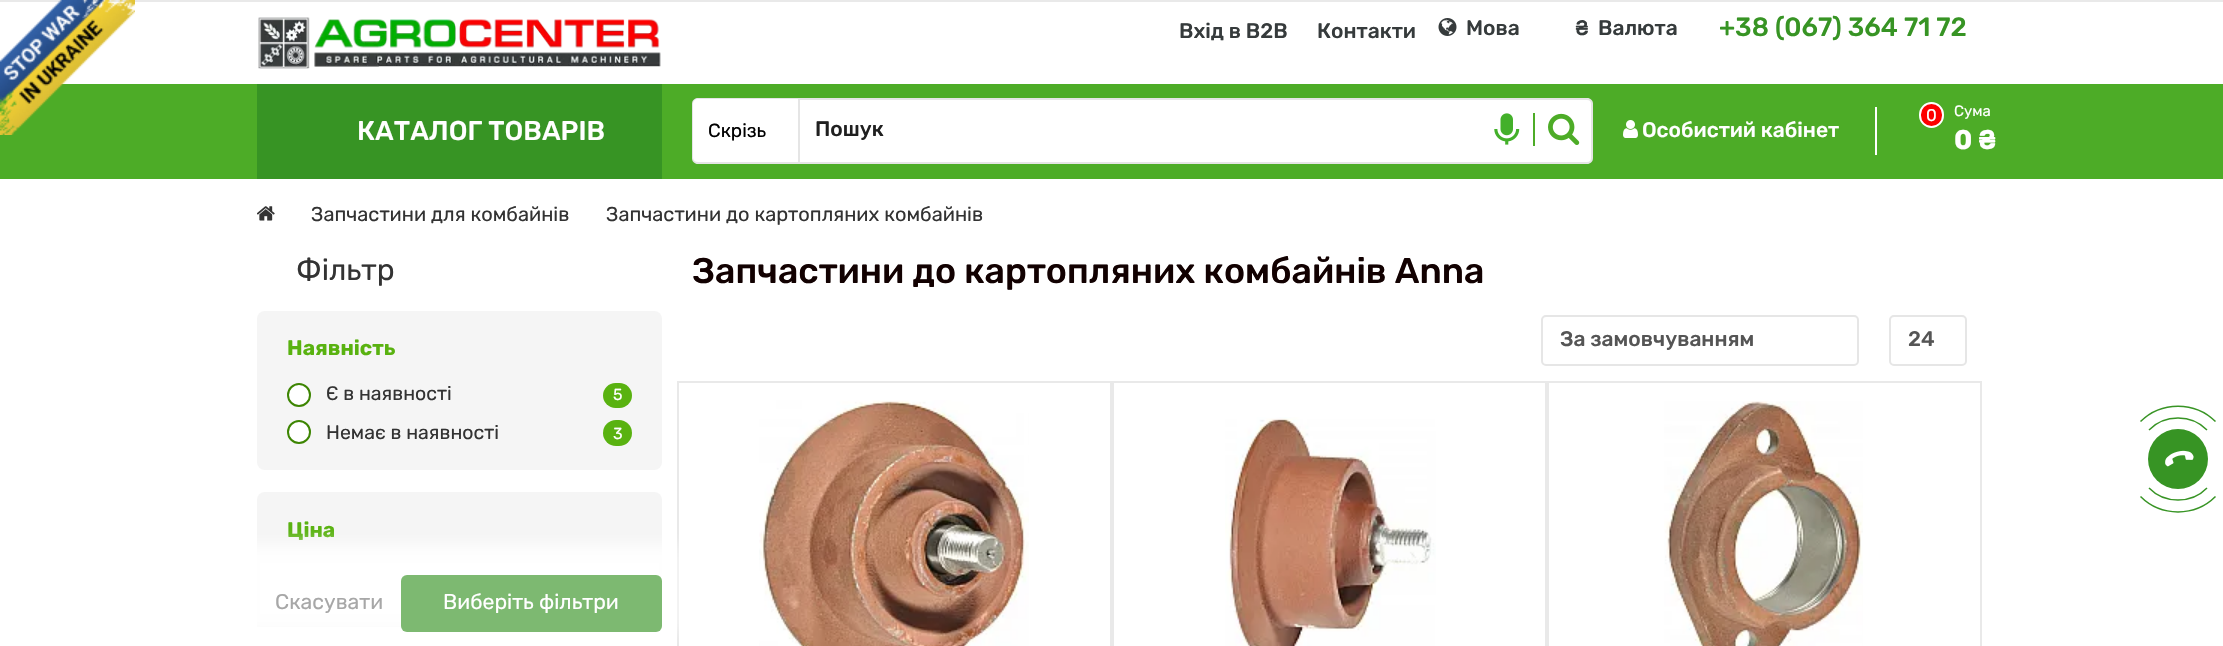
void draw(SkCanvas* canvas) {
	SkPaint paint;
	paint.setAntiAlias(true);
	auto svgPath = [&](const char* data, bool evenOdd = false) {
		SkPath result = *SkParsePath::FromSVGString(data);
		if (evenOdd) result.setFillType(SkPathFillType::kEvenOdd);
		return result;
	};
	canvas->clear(0xffffffff);
	paint.setColor(0xffe9e9e9);
	canvas->drawRect(SkRect::MakeXYWH(0, 0, 2223, 2), paint);
	paint.setColor(0xff4dac27);
	canvas->drawRect(SkRect::MakeXYWH(0, 84, 2223, 95), paint);
	canvas->drawImageRect(SkImages::DeferredFromEncodedData(SkData::MakeFromFileName("img1.png")), SkRect::MakeXYWH(0, 0, 135, 135), SkSamplingOptions());
	canvas->drawImageRect(SkImages::DeferredFromEncodedData(SkData::MakeFromFileName("img2.png")), SkRect::MakeXYWH(258, 17, 403, 52), SkSamplingOptions());
	SkFont f1(fontMgr->matchFamilyStyle("Rubik", SkFontStyle(500, SkFontStyle::kNormal_Width, SkFontStyle::kUpright_Slant)), 21);
	f1.setSubpixel(true);
	paint.setColor(0xff363b3c);
	canvas->drawString("Вхід в B2B", 1179, 38, f1, paint);
	canvas->drawString("Контакти", 1317, 38, f1, paint);
	canvas->drawImageRect(SkImages::DeferredFromEncodedData(SkData::MakeFromFileName("img3.png")), SkRect::MakeXYWH(1438, 18, 19, 18), SkSamplingOptions());
	canvas->drawString("Мова", 1466, 35, f1, paint);
	canvas->drawString("₴", 1575, 35, f1, paint);
	canvas->drawString("Валюта", 1598, 35, f1, paint);
	SkFont f2(fontMgr->matchFamilyStyle("Rubik", SkFontStyle(500, SkFontStyle::kNormal_Width, SkFontStyle::kUpright_Slant)), 26.25);
	f2.setSubpixel(true);
	paint.setColor(0xff379424);
	canvas->drawString("+38 (067) 364 71 72", 1719, 36, f2, paint);
	canvas->drawRect(SkRect::MakeXYWH(257, 84, 405, 95), paint);
	SkFont f3(fontMgr->matchFamilyStyle("Rubik", SkFontStyle(500, SkFontStyle::kNormal_Width, SkFontStyle::kUpright_Slant)), 27);
	f3.setSubpixel(true);
	paint.setColor(0xffffffff);
	canvas->drawString("КАТАЛОГ ТОВАРІВ", 357, 140, f3, paint);
	canvas->drawPath(svgPath("M698 98H798V164H698C694.5 164 692 161.5 692 158V104C692 100.5 694.5 98 698 98Z"), paint);
	paint.setColor(0x1a000000);
	canvas->drawPath(svgPath("M698 98H798V164H698C694 164 692 161 692 158V104C692 100 694 98 698 98ZM698 99H798V162H698C695 162 693 160 693 158V104C693 101 695 99 698 99Z", true), paint);
	SkFont f4(fontMgr->matchFamilyStyle("Rubik", SkFontStyle::Normal()), 19);
	f4.setSubpixel(true);
	paint.setColor(0xff000000);
	canvas->drawString("Скрізь", 708, 137, f4, paint);
	paint.setColor(0xffffffff);
	canvas->drawPath(svgPath("M798 98H1587C1590.5 98 1593 100.5 1593 104V158C1593 161.5 1590.5 164 1587 164H798Z"), paint);
	paint.setStroke(true);
	paint.setStrokeWidth(2);
	paint.setColor(0x1a000000);
	canvas->drawPath(svgPath("M799 99H1587C1590 99 1592 101 1592 104V158C1592 161 1590 163 1587 163H799Z"), paint);
	paint.setStroke(false);
	paint.setColor(0xff202020);
	canvas->drawString("Пошук", 815, 136, f1, paint);
	canvas->drawImageRect(SkImages::DeferredFromEncodedData(SkData::MakeFromFileName("img4.png")), SkRect::MakeXYWH(1494, 113, 26, 32), SkSamplingOptions());
	paint.setColor(0xff4dac27);
	canvas->drawRect(SkRect::MakeXYWH(1533, 113, 2, 33), paint);
	canvas->drawImageRect(SkImages::DeferredFromEncodedData(SkData::MakeFromFileName("img5.png")), SkRect::MakeXYWH(1548, 113, 32, 32), SkSamplingOptions());
	canvas->drawImageRect(SkImages::DeferredFromEncodedData(SkData::MakeFromFileName("img6.png")), SkRect::MakeXYWH(1623, 120, 15, 18), SkSamplingOptions());
	paint.setColor(0xffffffff);
	canvas->drawString("Особистий кабінет", 1642, 137, f1, paint);
	canvas->drawRect(SkRect::MakeXYWH(1875, 107, 2, 48), paint);
	paint.setColor(0xfffd0000);
	canvas->drawRoundRect(SkRect::MakeXYWH(1920, 103, 23, 24), 11.5, 11.5, paint);
	paint.setStroke(true);
	paint.setColor(0xffffffff);
	canvas->drawRoundRect(SkRect::MakeXYWH(1920, 103, 23, 24), 11.5, 11.5, paint);
	SkFont f5(fontMgr->matchFamilyStyle("Rubik", SkFontStyle::Normal()), 17);
	f5.setSubpixel(true);
	paint.setStroke(false);
	canvas->drawString("0", 1926, 121, f5, paint);
	SkFont f6(fontMgr->matchFamilyStyle("Rubik", SkFontStyle::Normal()), 15);
	f6.setSubpixel(true);
	canvas->drawString("Сума", 1954, 116, f6, paint);
	SkFont f7(fontMgr->matchFamilyStyle("Rubik", SkFontStyle::Bold()), 27);
	f7.setSubpixel(true);
	canvas->drawString("0 ₴", 1954, 149, f7, paint);
	canvas->drawImageRect(SkImages::DeferredFromEncodedData(SkData::MakeFromFileName("img7.png")), SkRect::MakeXYWH(257, 206, 18, 15), SkSamplingOptions());
	SkFont f8(fontMgr->matchFamilyStyle("Rubik", SkFontStyle::Normal()), 20);
	f8.setSubpixel(true);
	paint.setColor(0xff333333);
	canvas->drawString("Запчастини для комбайнів", 311, 221, f8, paint);
	canvas->drawString("Запчастини до картопляних комбайнів", 606, 221, f8, paint);
	SkFont f9(fontMgr->matchFamilyStyle("Rubik", SkFontStyle::Normal()), 30);
	f9.setSubpixel(true);
	canvas->drawString("Фільтр", 296, 280, f9, paint);
	paint.setColor(0xfff5f5f5);
	canvas->drawRoundRect(SkRect::MakeXYWH(257, 311, 405, 159), 8, 8, paint);
	SkFont f10(fontMgr->matchFamilyStyle("Rubik", SkFontStyle::Bold()), 21);
	f10.setSubpixel(true);
	paint.setColor(0xff59b210);
	canvas->drawString("Наявність", 287, 355, f10, paint);
	paint.setColor(0xffffffff);
	canvas->drawCircle(299, 395, 11, paint);
	paint.setStroke(true);
	paint.setColor(0xff3d8502);
	canvas->drawCircle(299, 395, 11, paint);
	SkFont f11(fontMgr->matchFamilyStyle("Rubik", SkFontStyle::Normal()), 19.5);
	f11.setSubpixel(true);
	paint.setStroke(false);
	paint.setColor(0xff333333);
	canvas->drawString("Є в наявності", 326, 400, f11, paint);
	paint.setColor(0xff59b210);
	canvas->drawRoundRect(SkRect::MakeXYWH(603, 383, 29, 25), 12.5, 12.5, paint);
	SkFont f12(fontMgr->matchFamilyStyle("Rubik", SkFontStyle::Normal()), 16);
	f12.setSubpixel(true);
	paint.setColor(0xffffffff);
	canvas->drawString("5", 613, 400, f12, paint);
	canvas->drawCircle(299, 432, 11, paint);
	paint.setStroke(true);
	paint.setColor(0xff3d8502);
	canvas->drawCircle(299, 432, 11, paint);
	paint.setStroke(false);
	paint.setColor(0xff333333);
	canvas->drawString("Немає в наявності", 326, 439, f11, paint);
	paint.setColor(0xff59b210);
	canvas->drawRoundRect(SkRect::MakeXYWH(603, 420, 29, 26), 13, 13, paint);
	paint.setColor(0xffffffff);
	canvas->drawString("3", 613, 439, f12, paint);
	paint.setColor(0xfff5f5f5);
	canvas->drawRoundRect(SkRect::MakeXYWH(257, 492, 405, 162), 8, 8, paint);
	paint.setColor(0xff59b210);
	canvas->drawString("Ціна", 287, 537, f10, paint);
	paint.setStroke(true);
	paint.setColor(0xffe9e9e9);
	canvas->drawRect(SkRect::MakeXYWH(678, 382, 433, 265), paint);
	paint.setStroke(false);
	paint.setColor(0xffffffff);
	paint.setMaskFilter(SkMaskFilter::MakeBlur(kNormal_SkBlurStyle, 7.5));
	canvas->drawRect(SkRect::MakeXYWH(242, 545, 435, 87), paint);
	paint.setMaskFilter(nullptr);
	canvas->drawRect(SkRect::MakeXYWH(257, 627, 405, 19), paint);
	SkFont f13(fontMgr->matchFamilyStyle("Rubik", SkFontStyle::Normal()), 21.25);
	f13.setSubpixel(true);
	paint.setColor(0xffa7a7a7);
	canvas->drawString("Скасувати", 275, 609, f13, paint);
	paint.setColor(0xff7db971);
	canvas->drawRoundRect(SkRect::MakeXYWH(401, 575, 261, 57), 6, 6, paint);
	paint.setColor(0xffffffff);
	canvas->drawString("Виберіть фільтри", 443, 609, f13, paint);
	SkFont f14(fontMgr->matchFamilyStyle("Rubik", SkFontStyle(500, SkFontStyle::kNormal_Width, SkFontStyle::kUpright_Slant)), 35.7);
	f14.setSubpixel(true);
	paint.setColor(0xff120101);
	canvas->drawString("Запчастини до картопляних комбайнів Anna", 692, 283, f14, paint);
	paint.setStroke(true);
	paint.setColor(0xffe6e6e6);
	canvas->drawRoundRect(SkRect::MakeXYWH(1542, 316, 316, 49), 4, 4, paint);
	paint.setStroke(false);
	paint.setColor(0xff555555);
	canvas->drawString("За замовчуванням", 1560, 346, f1, paint);
	paint.setStroke(true);
	paint.setColor(0xffe6e6e6);
	canvas->drawRoundRect(SkRect::MakeXYWH(1890, 316, 76, 49), 4, 4, paint);
	paint.setStroke(false);
	paint.setColor(0xff555555);
	canvas->drawString("24", 1908, 346, f1, paint);
	canvas->drawImageRect(SkImages::DeferredFromEncodedData(SkData::MakeFromFileName("img8.png")), SkRect::MakeXYWH(759, 400, 270, 246), SkSamplingOptions());
	paint.setStroke(true);
	paint.setColor(0xffe9e9e9);
	canvas->drawRect(SkRect::MakeXYWH(1113, 382, 433, 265), paint);
	canvas->drawImageRect(SkImages::DeferredFromEncodedData(SkData::MakeFromFileName("img9.png")), SkRect::MakeXYWH(1225, 417, 211, 229), SkSamplingOptions());
	canvas->drawRect(SkRect::MakeXYWH(1548, 382, 433, 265), paint);
	canvas->drawImageRect(SkImages::DeferredFromEncodedData(SkData::MakeFromFileName("img10.png")), SkRect::MakeXYWH(1664, 401, 199, 245), SkSamplingOptions());
	paint.setStroke(false);
	paint.setColor(0xff379424);
	canvas->drawCircle(2178, 459, 30, paint);
	paint.setStroke(true);
	paint.setStrokeWidth(1.5);
	canvas->drawPath(svgPath("M2149 430C2164.5 414 2191.5 414 2207 430"), paint);
	canvas->drawPath(svgPath("M2140.5 421.5C2161 401 2195 401 2215.5 421.5"), paint);
	canvas->drawPath(svgPath("M2207 488C2191.5 504 2164.5 504 2149 488"), paint);
	canvas->drawPath(svgPath("M2215.5 496.5C2195 517 2161 517 2140.5 496.5"), paint);
	canvas->drawImageRect(SkImages::DeferredFromEncodedData(SkData::MakeFromFileName("img11.png")), SkRect::MakeXYWH(2165, 450, 29, 17), SkSamplingOptions());
}
